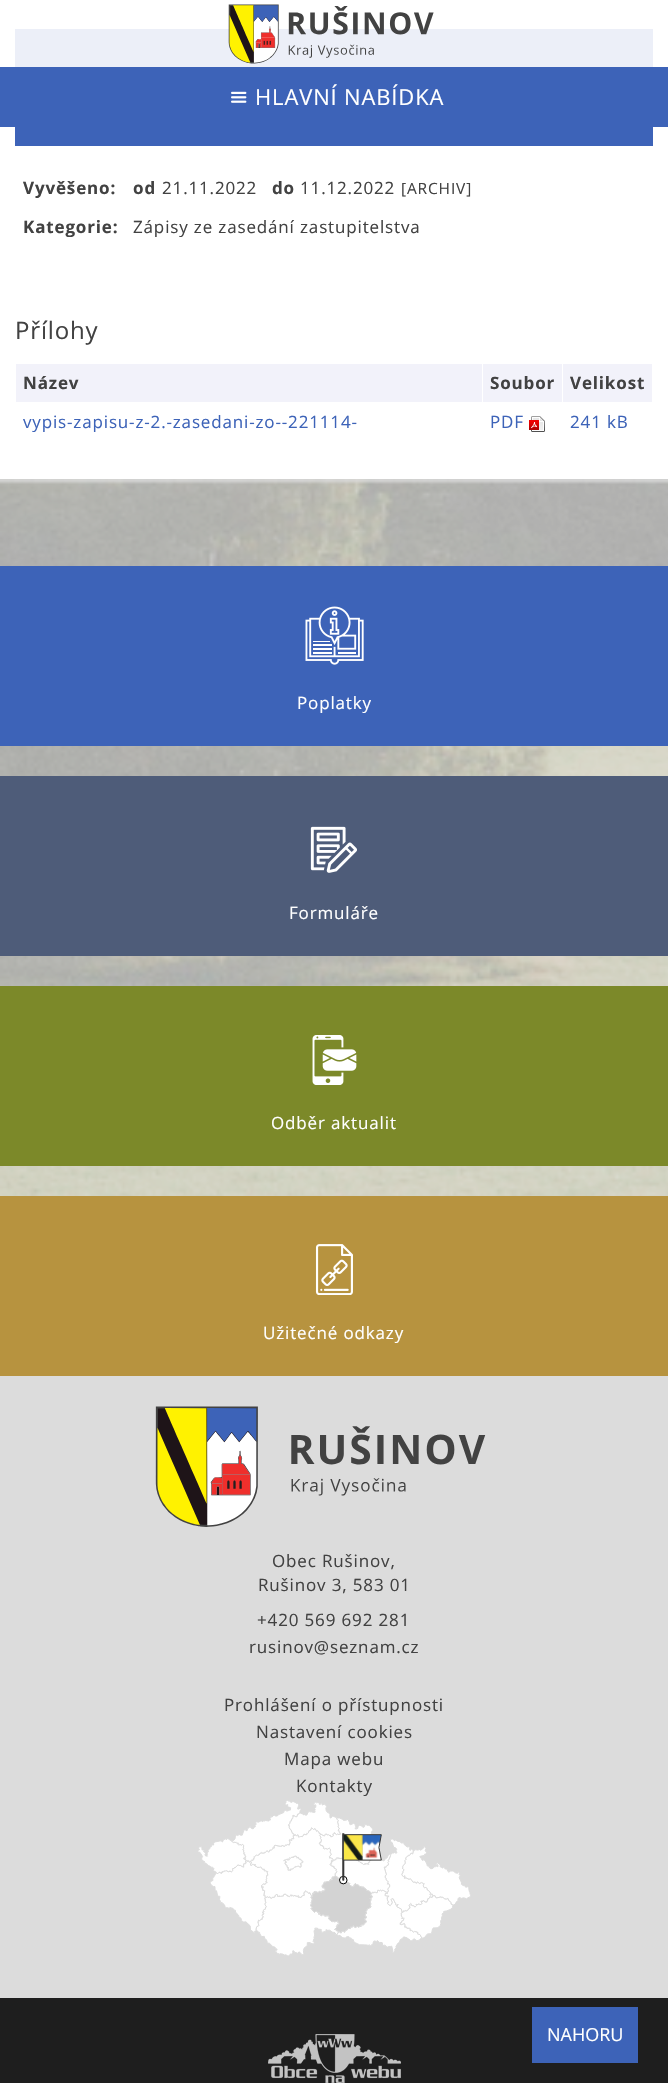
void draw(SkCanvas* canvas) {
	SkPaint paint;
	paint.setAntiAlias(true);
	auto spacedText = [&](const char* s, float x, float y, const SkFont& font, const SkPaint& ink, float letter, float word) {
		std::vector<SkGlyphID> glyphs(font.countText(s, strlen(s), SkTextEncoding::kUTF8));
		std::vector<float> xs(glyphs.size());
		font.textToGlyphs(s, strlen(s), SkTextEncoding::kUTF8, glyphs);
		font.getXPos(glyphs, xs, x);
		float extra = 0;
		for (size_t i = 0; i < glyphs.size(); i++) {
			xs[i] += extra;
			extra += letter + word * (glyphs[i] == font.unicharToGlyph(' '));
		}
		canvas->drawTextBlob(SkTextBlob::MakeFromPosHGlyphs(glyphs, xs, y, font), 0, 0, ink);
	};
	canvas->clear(0xffdcdcdc);
	paint.setColor(0xffffffff);
	canvas->drawRect(SkRect::MakeXYWH(0, 0, 668, 67), paint);
	paint.setColor(0xffeceff8);
	canvas->drawRect(SkRect::MakeXYWH(15, 29, 638, 38), paint);
	canvas->drawImageRect(SkImages::DeferredFromEncodedData(SkData::MakeFromFileName("img1.png")), SkRect::MakeXYWH(228, 4, 206, 60), SkSamplingOptions());
	paint.setColor(0xff3d63b8);
	canvas->drawRect(SkRect::MakeXYWH(0, 67, 668, 60), paint);
	canvas->drawImageRect(SkImages::DeferredFromEncodedData(SkData::MakeFromFileName("img2.png")), SkRect::MakeXYWH(231, 91, 16, 12), SkSamplingOptions());
	SkFont f1(fontMgr->matchFamilyStyle("Open Sans", SkFontStyle::Normal()), 22);
	f1.setSubpixel(true);
	paint.setColor(0xffffffff);
	spacedText("HLAVNÍ NABÍDKA", 255, 105, f1, paint, 0.85, 0);
	canvas->drawRect(SkRect::MakeXYWH(0, 127, 668, 352), paint);
	paint.setColor(0xff3d63b8);
	canvas->drawRect(SkRect::MakeXYWH(15, 127, 638, 19), paint);
	SkFont f2(fontMgr->matchFamilyStyle("Open Sans", SkFontStyle::Bold()), 17);
	f2.setSubpixel(true);
	paint.setColor(0xff424242);
	spacedText("Vyvěšeno:", 23, 194, f2, paint, 0.85, 0);
	spacedText("od", 133, 194, f2, paint, 0.85, 0);
	SkFont f3(fontMgr->matchFamilyStyle("Open Sans", SkFontStyle::Normal()), 17);
	f3.setSubpixel(true);
	spacedText("21.11.2022", 162, 194, f3, paint, 0.85, 0);
	spacedText("do", 272, 194, f2, paint, 0.85, 0);
	spacedText("11.12.2022", 300, 194, f3, paint, 0.85, 0);
	SkFont f4(fontMgr->matchFamilyStyle("Open Sans", SkFontStyle::Normal()), 15.5);
	f4.setSubpixel(true);
	spacedText("[ARCHIV]", 401, 194, f4, paint, 0.85, 0);
	spacedText("Kategorie:", 23, 233, f2, paint, 0.85, 0);
	spacedText("Zápisy ze zasedání zastupitelstva", 133, 233, f3, paint, 0.85, 0);
	SkFont f5(fontMgr->matchFamilyStyle("Open Sans", SkFontStyle::Normal()), 24);
	f5.setSubpixel(true);
	spacedText("Přílohy", 15, 339, f5, paint, 0.85, 0);
	paint.setColor(0xfff2f2fa);
	canvas->drawRect(SkRect::MakeXYWH(16, 364, 466, 38), paint);
	paint.setColor(0xff424242);
	spacedText("Název", 23, 389, f2, paint, 0.85, 0);
	paint.setColor(0xfff2f2fa);
	canvas->drawRect(SkRect::MakeXYWH(483, 364, 79, 38), paint);
	paint.setColor(0xff424242);
	spacedText("Soubor", 490, 389, f2, paint, 0.85, 0);
	paint.setColor(0xfff2f2fa);
	canvas->drawRect(SkRect::MakeXYWH(563, 364, 89, 38), paint);
	paint.setColor(0xff424242);
	spacedText("Velikost", 570, 389, f2, paint, 0.85, 0);
	paint.setColor(0xff3d63b8);
	spacedText("vypis-zapisu-z-2.-zasedani-zo--221114-", 23, 428, f3, paint, 0.85, 0);
	spacedText("PDF", 490, 428, f3, paint, 0.85, 0);
	canvas->drawImageRect(SkImages::DeferredFromEncodedData(SkData::MakeFromFileName("img3.png")), SkRect::MakeXYWH(529, 416, 16, 16), SkSamplingOptions());
	spacedText("241 kB", 570, 428, f3, paint, 0.85, 0);
	canvas->drawImageRect(SkImages::DeferredFromEncodedData(SkData::MakeFromFileName("img4.png")), SkRect::MakeXYWH(0, 479, 668, 717), SkSamplingOptions());
	canvas->drawRect(SkRect::MakeXYWH(0, 566, 668, 180), paint);
	canvas->drawImageRect(SkImages::DeferredFromEncodedData(SkData::MakeFromFileName("img5.png")), SkRect::MakeXYWH(305, 606, 59, 59), SkSamplingOptions());
	paint.setColor(0xffffffff);
	spacedText("Poplatky", 297, 709, f3, paint, 0.85, 0);
	paint.setColor(0xff4e5c79);
	canvas->drawRect(SkRect::MakeXYWH(0, 776, 668, 180), paint);
	canvas->drawImageRect(SkImages::DeferredFromEncodedData(SkData::MakeFromFileName("img6.png")), SkRect::MakeXYWH(310, 826, 47, 47), SkSamplingOptions());
	paint.setColor(0xffffffff);
	spacedText("Formuláře", 289, 919, f3, paint, 0.85, 0);
	paint.setColor(0xff7c8929);
	canvas->drawRect(SkRect::MakeXYWH(0, 986, 668, 180), paint);
	canvas->drawImageRect(SkImages::DeferredFromEncodedData(SkData::MakeFromFileName("img7.png")), SkRect::MakeXYWH(312, 1035, 45, 50), SkSamplingOptions());
	paint.setColor(0xffffffff);
	spacedText("Odběr aktualit", 271, 1129, f3, paint, 0.85, 0);
	paint.setColor(0xffb7933f);
	canvas->drawRect(SkRect::MakeXYWH(0, 1196, 668, 180), paint);
	canvas->drawImageRect(SkImages::DeferredFromEncodedData(SkData::MakeFromFileName("img8.png")), SkRect::MakeXYWH(315, 1244, 38, 51), SkSamplingOptions());
	paint.setColor(0xffffffff);
	spacedText("Užitečné odkazy", 263, 1339, f3, paint, 0.85, 0);
	canvas->drawImageRect(SkImages::DeferredFromEncodedData(SkData::MakeFromFileName("img9.png")), SkRect::MakeXYWH(155, 1406, 331, 121), SkSamplingOptions());
	paint.setColor(0xff424242);
	spacedText("Obec Rušinov,", 272, 1567, f3, paint, 0.85, 0);
	spacedText("Rušinov 3, 583 01", 258, 1591, f3, paint, 0.85, 0);
	spacedText("+420 569 692 281", 257, 1626, f3, paint, 0.85, 0);
	spacedText("rusinov@seznam.cz", 249, 1653, f3, paint, 0.85, 0);
	spacedText("Prohlášení o přístupnosti", 224, 1711, f3, paint, 0.85, 0);
	spacedText("Nastavení cookies", 256, 1738, f3, paint, 0.85, 0);
	spacedText("Mapa webu", 284, 1765, f3, paint, 0.85, 0);
	spacedText("Kontakty", 296, 1792, f3, paint, 0.85, 0);
	canvas->drawImageRect(SkImages::DeferredFromEncodedData(SkData::MakeFromFileName("img10.png")), SkRect::MakeXYWH(198, 1800, 273, 156), SkSamplingOptions());
	paint.setColor(0xff1e1e1e);
	canvas->drawRect(SkRect::MakeXYWH(0, 1998, 668, 85), paint);
	canvas->drawImageRect(SkImages::DeferredFromEncodedData(SkData::MakeFromFileName("img11.png")), SkRect::MakeXYWH(268, 2034, 133, 49), SkSamplingOptions());
	paint.setColor(0xff3d63b8);
	canvas->drawRect(SkRect::MakeXYWH(532, 2007, 106, 56), paint);
	SkFont f6(fontMgr->matchFamilyStyle("Open Sans", SkFontStyle::Normal()), 18);
	f6.setSubpixel(true);
	paint.setColor(0xffffffff);
	canvas->drawString("NAHORU", 547, 2041, f6, paint);
}
